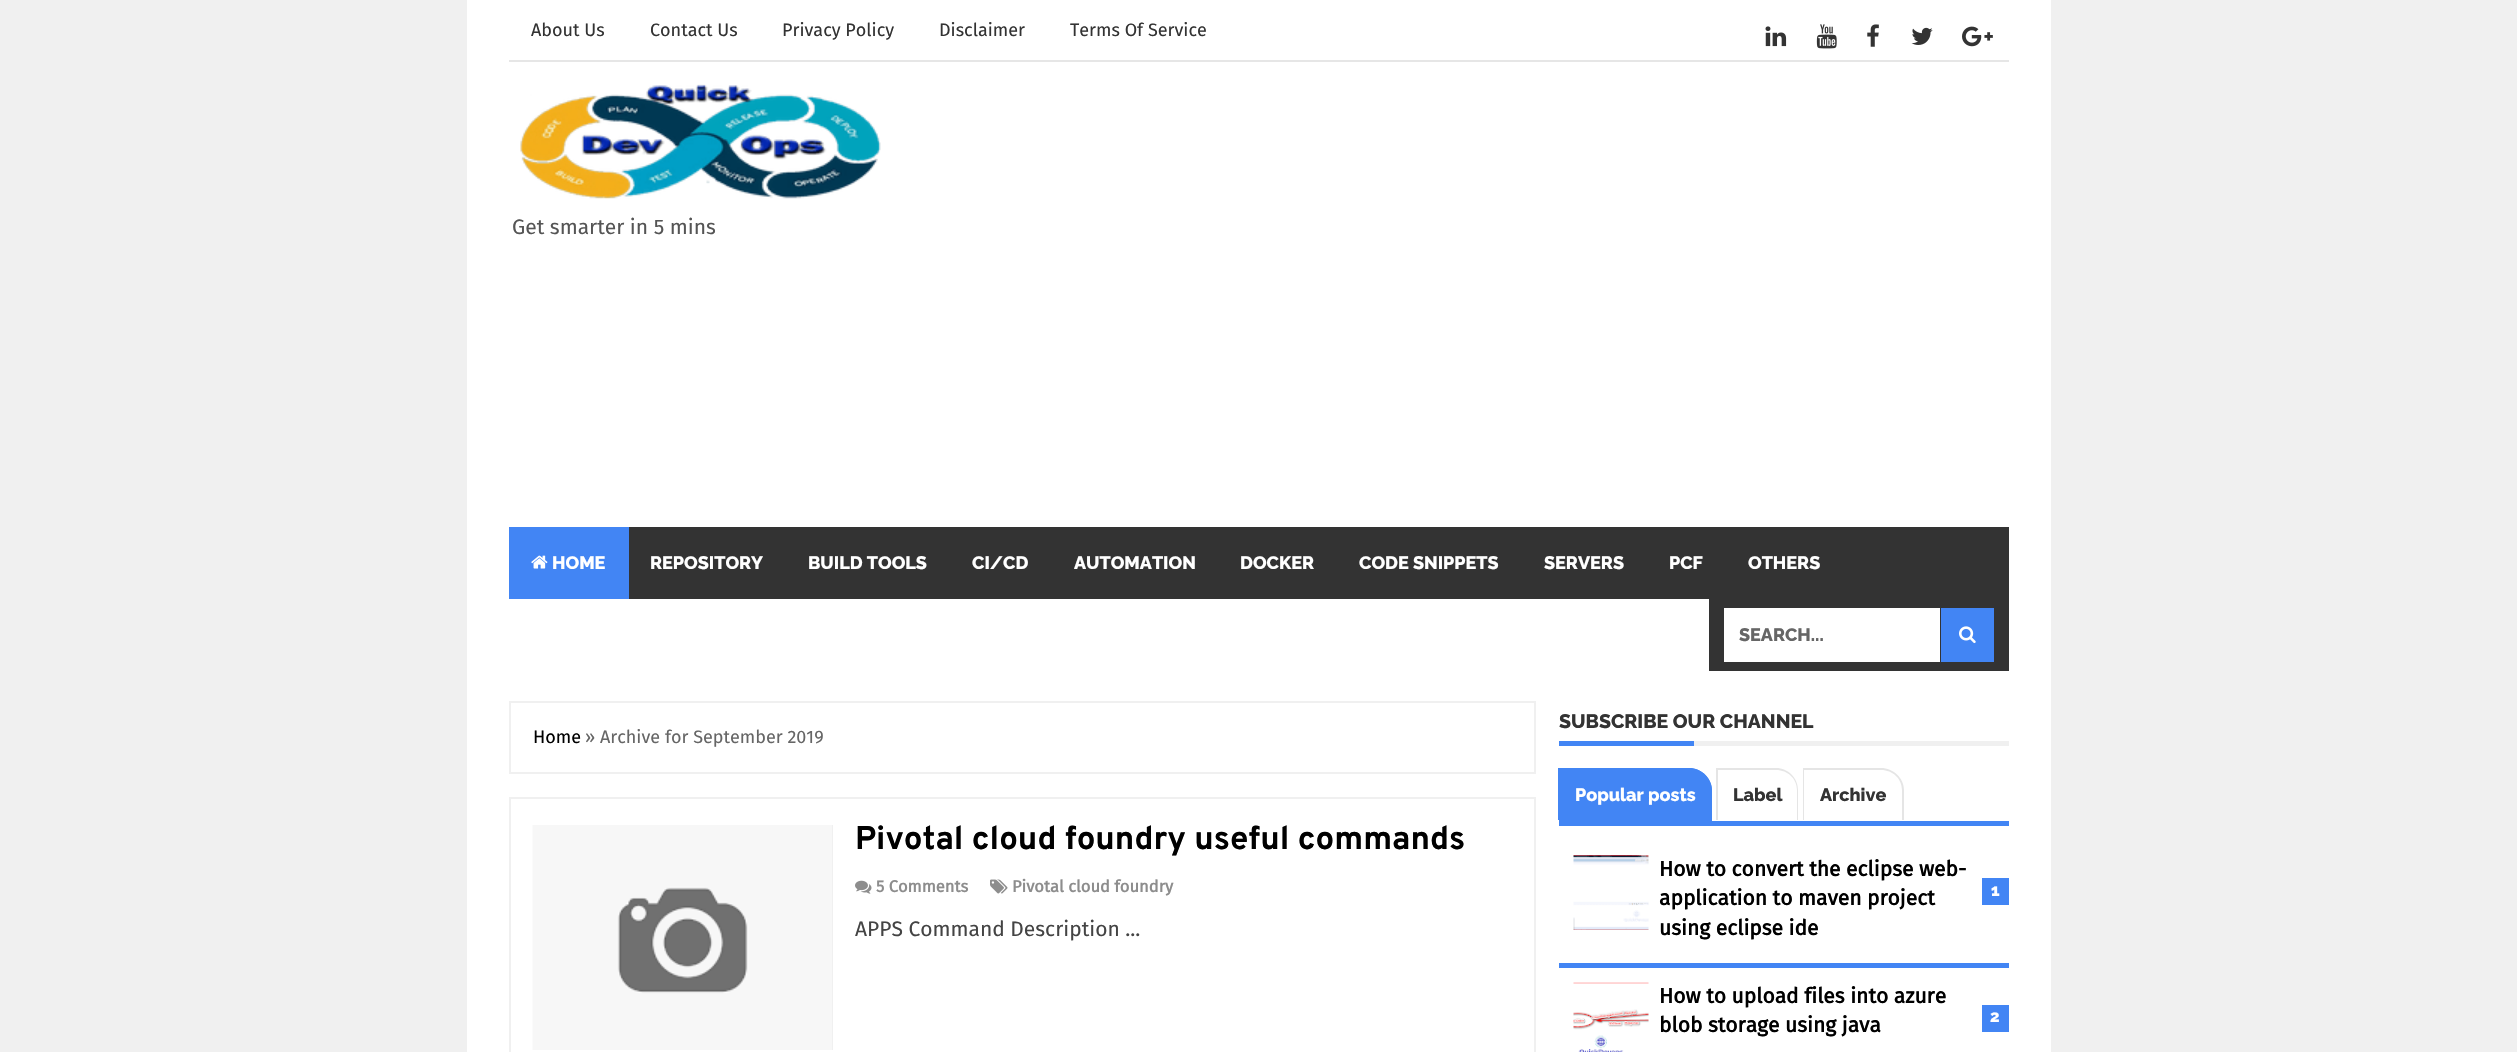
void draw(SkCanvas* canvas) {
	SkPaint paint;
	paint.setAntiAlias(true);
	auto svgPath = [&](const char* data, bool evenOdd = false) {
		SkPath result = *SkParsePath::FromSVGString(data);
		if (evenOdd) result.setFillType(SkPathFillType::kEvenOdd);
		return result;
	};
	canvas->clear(0xfff0f0f0);
	paint.setColor(0xffffffff);
	canvas->drawRect(SkRect::MakeXYWH(467, 0, 1584, 1052), paint);
	paint.setColor(0xffe6e6e6);
	canvas->drawRect(SkRect::MakeXYWH(509, 60, 1500, 2), paint);
	SkFont f1(fontMgr->matchFamilyStyle("Fira Sans", SkFontStyle::Normal()), 18);
	f1.setSubpixel(true);
	paint.setColor(0xff333333);
	canvas->drawString("About Us", 531, 36, f1, paint);
	canvas->drawString("Contact Us", 650, 36, f1, paint);
	canvas->drawString("Privacy Policy", 782, 36, f1, paint);
	canvas->drawString("Disclaimer", 939, 36, f1, paint);
	canvas->drawString("Terms Of Service", 1070, 36, f1, paint);
	canvas->drawImageRect(SkImages::DeferredFromEncodedData(SkData::MakeFromFileName("img1.png")), SkRect::MakeXYWH(1765, 26, 22, 21), SkSamplingOptions());
	canvas->drawImageRect(SkImages::DeferredFromEncodedData(SkData::MakeFromFileName("img2.png")), SkRect::MakeXYWH(1816, 24, 21, 25), SkSamplingOptions());
	canvas->drawImageRect(SkImages::DeferredFromEncodedData(SkData::MakeFromFileName("img3.png")), SkRect::MakeXYWH(1867, 24, 12, 23), SkSamplingOptions());
	canvas->drawImageRect(SkImages::DeferredFromEncodedData(SkData::MakeFromFileName("img4.png")), SkRect::MakeXYWH(1911, 27, 22, 18), SkSamplingOptions());
	canvas->drawImageRect(SkImages::DeferredFromEncodedData(SkData::MakeFromFileName("img5.png")), SkRect::MakeXYWH(1962, 26, 31, 21), SkSamplingOptions());
	canvas->drawImageRect(SkImages::DeferredFromEncodedData(SkData::MakeFromFileName("img6.png")), SkRect::MakeXYWH(520, 84, 361, 115), SkSamplingOptions());
	SkFont f2(fontMgr->matchFamilyStyle("Fira Sans", SkFontStyle::Normal()), 21);
	f2.setSubpixel(true);
	paint.setColor(0xff555555);
	canvas->drawString("Get smarter in 5 mins", 512, 234, f2, paint);
	paint.setColor(0xff333333);
	canvas->drawRect(SkRect::MakeXYWH(629, 527, 1380, 72), paint);
	paint.setColor(0xff4285f4);
	canvas->drawRect(SkRect::MakeXYWH(509, 527, 120, 72), paint);
	canvas->drawImageRect(SkImages::DeferredFromEncodedData(SkData::MakeFromFileName("img7.png")), SkRect::MakeXYWH(531, 555, 17, 14), SkSamplingOptions());
	SkFont f3(fontMgr->matchFamilyStyle("Raleway", SkFontStyle(100, SkFontStyle::kNormal_Width, SkFontStyle::kUpright_Slant)), 18);
	f3.setSubpixel(true);
	paint.setColor(0xffffffff);
	canvas->drawString("HOME", 552, 569, f3, paint);
	canvas->drawString("REPOSITORY", 650, 569, f3, paint);
	canvas->drawString("BUILD TOOLS", 808, 569, f3, paint);
	canvas->drawString("CI/CD", 972, 569, f3, paint);
	canvas->drawString("AUTOMATION", 1074, 569, f3, paint);
	canvas->drawString("DOCKER", 1240, 569, f3, paint);
	canvas->drawString("CODE SNIPPETS", 1359, 569, f3, paint);
	canvas->drawString("SERVERS", 1544, 569, f3, paint);
	canvas->drawString("PCF", 1669, 569, f3, paint);
	canvas->drawString("OTHERS", 1748, 569, f3, paint);
	paint.setColor(0xff333333);
	canvas->drawRect(SkRect::MakeXYWH(1709, 599, 300, 72), paint);
	paint.setColor(0xffffffff);
	canvas->drawRect(SkRect::MakeXYWH(1724, 608, 216, 54), paint);
	paint.setColor(0xff666666);
	canvas->drawString("SEARCH...", 1739, 641, f3, paint);
	paint.setColor(0xff4285f4);
	canvas->drawRect(SkRect::MakeXYWH(1941, 608, 53, 54), paint);
	canvas->drawImageRect(SkImages::DeferredFromEncodedData(SkData::MakeFromFileName("img8.png")), SkRect::MakeXYWH(1959, 626, 17, 18), SkSamplingOptions());
	paint.setStroke(true);
	paint.setStrokeWidth(2);
	paint.setColor(0xfff0f0f0);
	canvas->drawRect(SkRect::MakeXYWH(510, 702, 1025, 71), paint);
	paint.setStroke(false);
	paint.setColor(0xff000000);
	canvas->drawString("Home", 533, 743, f1, paint);
	paint.setColor(0xff666666);
	canvas->drawString("» Archive for September 2019", 585, 743, f1, paint);
	paint.setStroke(true);
	paint.setColor(0xfff0f0f0);
	canvas->drawRect(SkRect::MakeXYWH(510, 798, 1025, 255), paint);
	paint.setStroke(false);
	canvas->drawRect(SkRect::MakeXYWH(832, 825, 1, 225), paint);
	canvas->drawImageRect(SkImages::DeferredFromEncodedData(SkData::MakeFromFileName("img9.png")), SkRect::MakeXYWH(532, 825, 300, 225), SkSamplingOptions());
	SkFont f4(fontMgr->matchFamilyStyle("Overpass", SkFontStyle::Bold()), 33);
	f4.setSubpixel(true);
	paint.setColor(0xff000000);
	canvas->drawString("Pivotal cloud foundry useful commands", 855, 849, f4, paint);
	canvas->drawImageRect(SkImages::DeferredFromEncodedData(SkData::MakeFromFileName("img10.png")), SkRect::MakeXYWH(855, 880, 17, 14), SkSamplingOptions());
	SkFont f5(fontMgr->matchFamilyStyle("Fira Sans", SkFontStyle::Bold()), 16.5);
	f5.setSubpixel(true);
	paint.setColor(0xff8d8d8d);
	canvas->drawString("5 Comments", 876, 892, f5, paint);
	canvas->drawImageRect(SkImages::DeferredFromEncodedData(SkData::MakeFromFileName("img11.png")), SkRect::MakeXYWH(990, 879, 18, 15), SkSamplingOptions());
	canvas->drawString("Pivotal cloud foundry", 1012, 892, f5, paint);
	paint.setColor(0xff444444);
	canvas->drawString("APPS Command Description ...", 855, 936, f2, paint);
	paint.setColor(0xfff0f0f0);
	canvas->drawRect(SkRect::MakeXYWH(1694, 741, 315, 5), paint);
	SkFont f6(fontMgr->matchFamilyStyle("Raleway", SkFontStyle(100, SkFontStyle::kNormal_Width, SkFontStyle::kUpright_Slant)), 19.5);
	f6.setSubpixel(true);
	paint.setColor(0xff333333);
	canvas->drawString("SUBSCRIBE OUR CHANNEL", 1559, 728, f6, paint);
	paint.setColor(0xff4285f4);
	canvas->drawRect(SkRect::MakeXYWH(1559, 741, 135, 5), paint);
	canvas->drawRect(SkRect::MakeXYWH(1559, 821, 450, 5), paint);
	canvas->drawPath(svgPath("M1559 768H1689C1701.5 768 1712 778.5 1712 791V821H1559Z"), paint);
	canvas->drawPath(svgPath("M1558 768H1689C1701 768 1712 778 1712 790V820H1558ZM1560 770H1689C1701 770 1710 779 1710 790V820H1560Z", true), paint);
	paint.setColor(0xffffffff);
	canvas->drawString("Popular posts", 1575, 801, f3, paint);
	paint.setColor(0xffe5e5e5);
	canvas->drawPath(svgPath("M1716 768H1776C1788 768 1798 778 1798 790V820H1716ZM1718 770H1776C1788 770 1797 779 1797 790V820H1718Z", true), paint);
	paint.setColor(0xff333333);
	canvas->drawString("Label", 1733, 801, f3, paint);
	paint.setColor(0xffe5e5e5);
	canvas->drawPath(svgPath("M1803 768H1881C1893 768 1904 778 1904 790V820H1803ZM1804 770H1881C1893 770 1902 779 1902 790V820H1804Z", true), paint);
	paint.setColor(0xff333333);
	canvas->drawString("Archive", 1820, 801, f3, paint);
	paint.setColor(0xff4285f4);
	canvas->drawRect(SkRect::MakeXYWH(1559, 963, 450, 5), paint);
	canvas->drawImageRect(SkImages::DeferredFromEncodedData(SkData::MakeFromFileName("img12.png")), SkRect::MakeXYWH(1573, 855, 76, 75), SkSamplingOptions());
	SkFont f7(fontMgr->matchFamilyStyle("Fira Sans", SkFontStyle::Bold()), 21);
	f7.setSubpixel(true);
	paint.setColor(0xff000000);
	canvas->drawString("How to convert the eclipse web-", 1659, 876, f7, paint);
	canvas->drawString("application to maven project", 1659, 905, f7, paint);
	canvas->drawString("using eclipse ide", 1659, 935, f7, paint);
	paint.setColor(0xff4285f4);
	canvas->drawRect(SkRect::MakeXYWH(1982, 878, 27, 27), paint);
	SkFont f8(fontMgr->matchFamilyStyle("Raleway", SkFontStyle(100, SkFontStyle::kNormal_Width, SkFontStyle::kUpright_Slant)), 16.5);
	f8.setSubpixel(true);
	paint.setColor(0xffffffff);
	canvas->drawString("1", 1991, 896, f8, paint);
	canvas->drawImageRect(SkImages::DeferredFromEncodedData(SkData::MakeFromFileName("img13.png")), SkRect::MakeXYWH(1573, 982, 76, 70), SkSamplingOptions());
	paint.setColor(0xff000000);
	canvas->drawString("How to upload files into azure", 1659, 1003, f7, paint);
	canvas->drawString("blob storage using java", 1659, 1032, f7, paint);
	paint.setColor(0xff4285f4);
	canvas->drawRect(SkRect::MakeXYWH(1982, 1005, 27, 27), paint);
	paint.setColor(0xffffffff);
	canvas->drawString("2", 1990, 1022, f8, paint);
}
